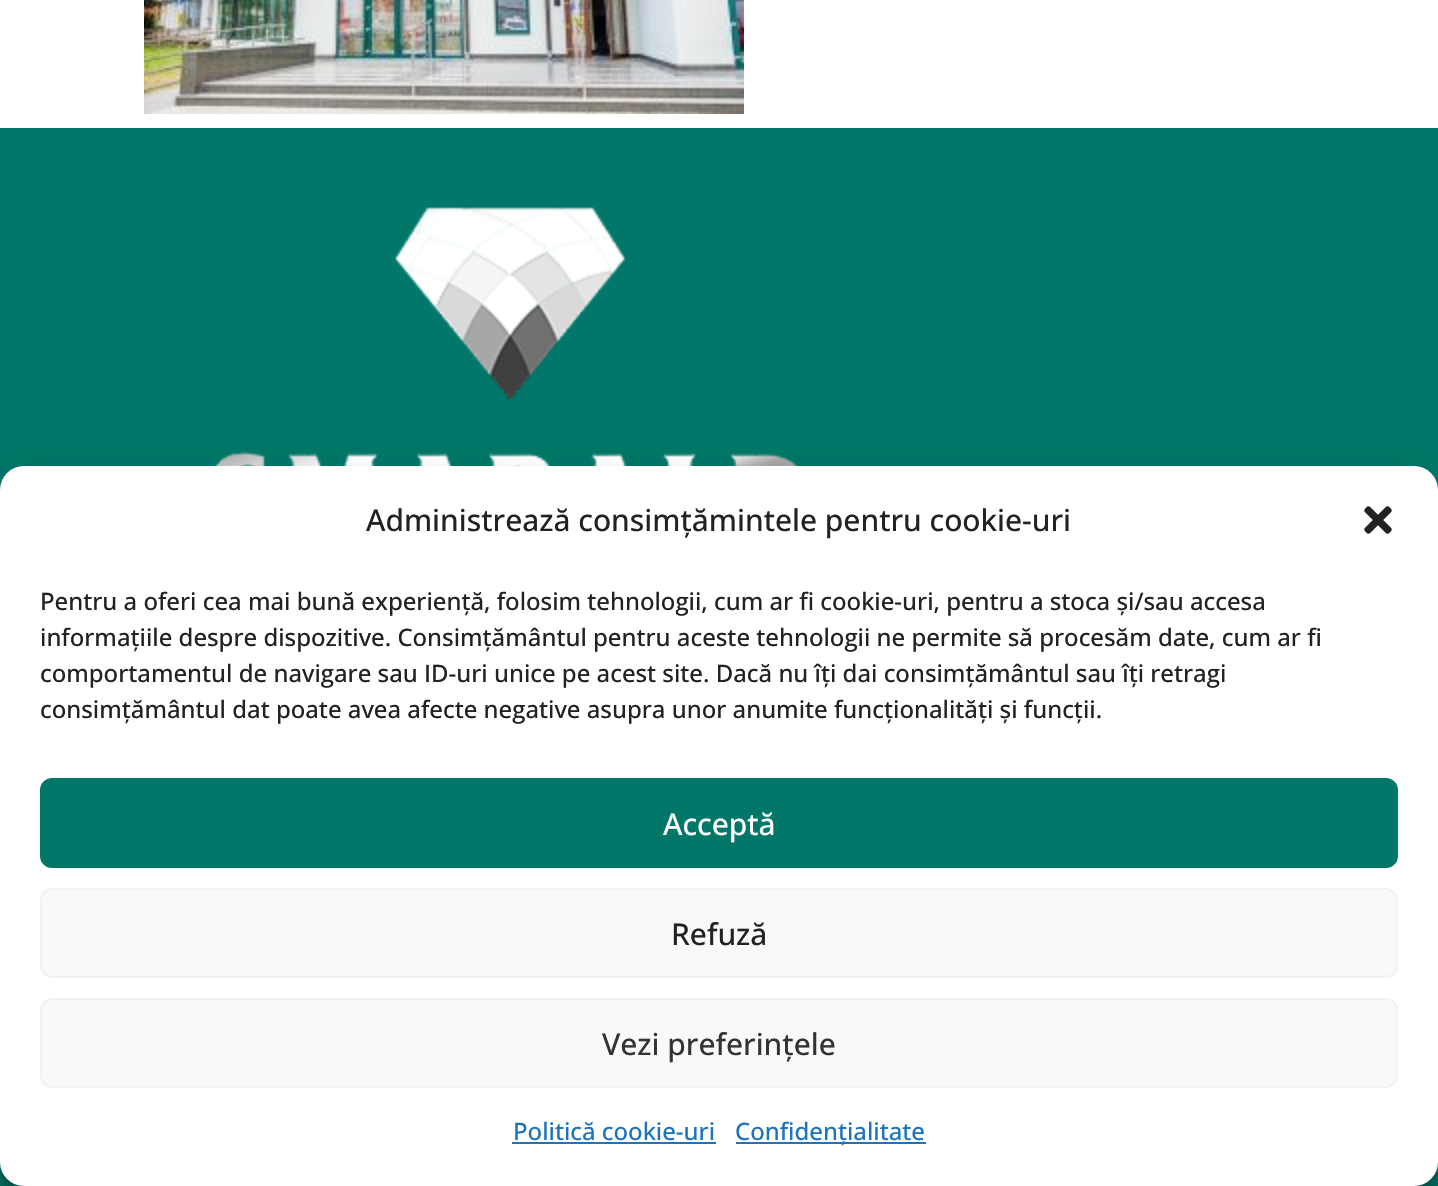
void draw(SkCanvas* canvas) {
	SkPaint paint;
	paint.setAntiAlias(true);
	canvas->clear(0xffffffff);
	canvas->drawImageRect(SkImages::DeferredFromEncodedData(SkData::MakeFromFileName("img1.png")), SkRect::MakeXYWH(144, 0, 600, 114), SkSamplingOptions());
	paint.setColor(0xff007768);
	canvas->drawRect(SkRect::MakeXYWH(0, 128, 1438, 1058), paint);
	canvas->drawImageRect(SkImages::DeferredFromEncodedData(SkData::MakeFromFileName("img2.png")), SkRect::MakeXYWH(214, 207, 585, 259), SkSamplingOptions());
	paint.setColor(0x3b000000);
	paint.setMaskFilter(SkMaskFilter::MakeBlur(kNormal_SkBlurStyle, 6));
	canvas->drawRoundRect(SkRect::MakeXYWH(0, 478, 1438, 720), 24, 24, paint);
	paint.setMaskFilter(nullptr);
	paint.setColor(0x30000000);
	paint.setMaskFilter(SkMaskFilter::MakeBlur(kNormal_SkBlurStyle, 20));
	canvas->drawRoundRect(SkRect::MakeXYWH(0, 486, 1438, 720), 24, 24, paint);
	paint.setMaskFilter(nullptr);
	paint.setColor(0xffffffff);
	canvas->drawRoundRect(SkRect::MakeXYWH(0, 466, 1438, 720), 24, 24, paint);
	SkFont f1(fontMgr->matchFamilyStyle("Open Sans", SkFontStyle(500, SkFontStyle::kNormal_Width, SkFontStyle::kUpright_Slant)), 30);
	f1.setSubpixel(true);
	paint.setColor(0xff222222);
	canvas->drawString("Administrează consimțămintele pentru cookie-uri", 366, 531, f1, paint);
	canvas->drawImageRect(SkImages::DeferredFromEncodedData(SkData::MakeFromFileName("img3.png")), SkRect::MakeXYWH(1364, 506, 28, 28), SkSamplingOptions());
	SkFont f2(fontMgr->matchFamilyStyle("Open Sans", SkFontStyle(500, SkFontStyle::kNormal_Width, SkFontStyle::kUpright_Slant)), 24);
	f2.setSubpixel(true);
	canvas->drawString("Pentru a oferi cea mai bună experiență, folosim tehnologii, cum ar fi cookie-uri, pentru a stoca și/sau accesa", 40, 610, f2, paint);
	canvas->drawString("informațiile despre dispozitive. Consimțământul pentru aceste tehnologii ne permite să procesăm date, cum ar fi", 40, 646, f2, paint);
	canvas->drawString("comportamentul de navigare sau ID-uri unice pe acest site. Dacă nu îți dai consimțământul sau îți retragi", 40, 682, f2, paint);
	canvas->drawString("consimțământul dat poate avea afecte negative asupra unor anumite funcționalități și funcții.", 40, 718, f2, paint);
	paint.setColor(0xff007768);
	canvas->drawRoundRect(SkRect::MakeXYWH(41, 779, 1356, 88), 11, 11, paint);
	paint.setStroke(true);
	paint.setStrokeWidth(2);
	canvas->drawRoundRect(SkRect::MakeXYWH(41, 779, 1356, 88), 11, 11, paint);
	paint.setStroke(false);
	paint.setColor(0xffffffff);
	canvas->drawString("Acceptă", 663, 835, f1, paint);
	paint.setColor(0xfff9f9f9);
	canvas->drawRoundRect(SkRect::MakeXYWH(41, 889, 1356, 88), 11, 11, paint);
	paint.setStroke(true);
	paint.setColor(0xfff2f2f2);
	canvas->drawRoundRect(SkRect::MakeXYWH(41, 889, 1356, 88), 11, 11, paint);
	paint.setStroke(false);
	paint.setColor(0xff222222);
	canvas->drawString("Refuză", 671, 945, f1, paint);
	paint.setColor(0xfff9f9f9);
	canvas->drawRoundRect(SkRect::MakeXYWH(41, 999, 1356, 88), 11, 11, paint);
	paint.setStroke(true);
	paint.setColor(0xfff2f2f2);
	canvas->drawRoundRect(SkRect::MakeXYWH(41, 999, 1356, 88), 11, 11, paint);
	paint.setStroke(false);
	paint.setColor(0xff333333);
	canvas->drawString("Vezi preferințele", 602, 1055, f1, paint);
	paint.setColor(0xff1e73be);
	canvas->drawString("Politică cookie-uri", 513, 1140, f2, paint);
	canvas->drawRect(SkRect::MakeXYWH(512, 1142, 204, 2), paint);
	canvas->drawRect(SkRect::MakeXYWH(736, 1142, 190, 2), paint);
	canvas->drawString("Confidențialitate", 735, 1140, f2, paint);
}
